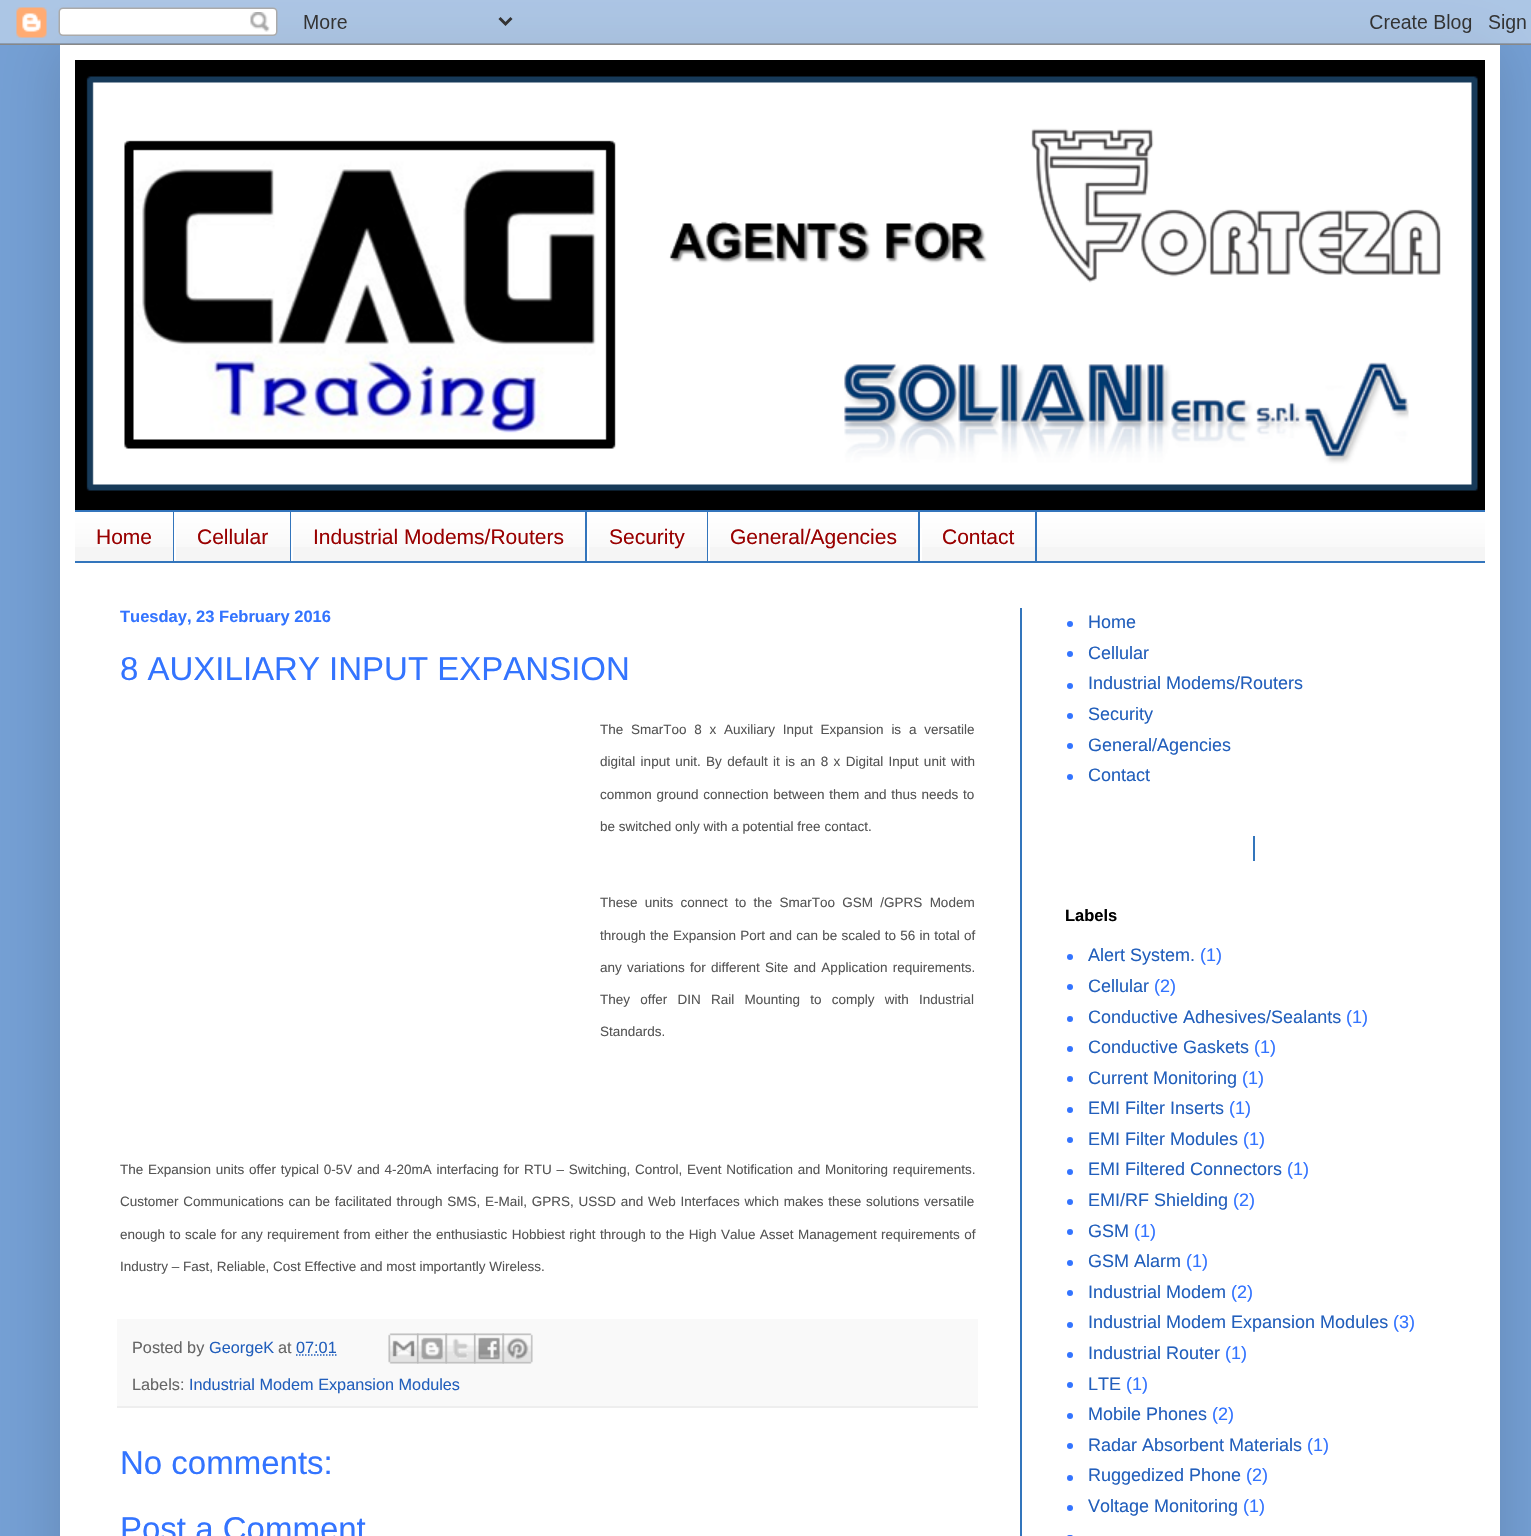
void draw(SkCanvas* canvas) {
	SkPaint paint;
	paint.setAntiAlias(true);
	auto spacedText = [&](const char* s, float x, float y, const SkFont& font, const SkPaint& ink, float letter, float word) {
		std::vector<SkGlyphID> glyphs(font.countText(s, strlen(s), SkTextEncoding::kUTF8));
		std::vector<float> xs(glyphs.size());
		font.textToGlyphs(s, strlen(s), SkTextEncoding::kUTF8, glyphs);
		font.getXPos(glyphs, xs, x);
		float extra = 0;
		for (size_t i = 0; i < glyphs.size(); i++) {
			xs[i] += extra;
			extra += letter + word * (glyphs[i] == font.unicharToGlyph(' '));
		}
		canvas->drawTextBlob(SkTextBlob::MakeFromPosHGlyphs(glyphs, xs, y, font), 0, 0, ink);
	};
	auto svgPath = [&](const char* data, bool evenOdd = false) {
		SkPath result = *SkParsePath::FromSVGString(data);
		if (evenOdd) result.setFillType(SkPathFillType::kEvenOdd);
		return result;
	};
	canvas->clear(0xff75a0d5);
	paint.setColor(0x26000000);
	paint.setMaskFilter(SkMaskFilter::MakeBlur(kNormal_SkBlurStyle, 30));
	canvas->drawRect(SkRect::MakeXYWH(60, 45, 1440, 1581), paint);
	paint.setMaskFilter(nullptr);
	canvas->drawImageRect(SkImages::DeferredFromEncodedData(SkData::MakeFromFileName("img1.png")), SkRect::MakeXYWH(0, 0, 1531, 45), SkSamplingOptions());
	paint.setColor(0xffffffff);
	canvas->drawRect(SkRect::MakeXYWH(60, 45, 1440, 1491), paint);
	canvas->drawImageRect(SkImages::DeferredFromEncodedData(SkData::MakeFromFileName("img2.png")), SkRect::MakeXYWH(75, 60, 1410, 450), SkSamplingOptions());
	paint.setColor(0xfff5f5f5);
	canvas->drawRect(SkRect::MakeXYWH(75, 513, 1410, 48), paint);
	canvas->drawImageRect(SkImages::DeferredFromEncodedData(SkData::MakeFromFileName("img3.png")), SkRect::MakeXYWH(75, 512, 1410, 35), SkSamplingOptions());
	paint.setColor(0xff3375bc);
	canvas->drawRect(SkRect::MakeXYWH(75, 510, 1410, 2), paint);
	canvas->drawRect(SkRect::MakeXYWH(75, 561, 1410, 2), paint);
	canvas->drawRect(SkRect::MakeXYWH(173, 512, 1, 49), paint);
	SkFont f1(fontMgr->matchFamilyStyle("Liberation Sans", SkFontStyle::Normal()), 21);
	f1.setSubpixel(true);
	paint.setColor(0xff990000);
	canvas->drawString("Home", 96, 544, f1, paint);
	paint.setColor(0xff3375bc);
	canvas->drawRect(SkRect::MakeXYWH(290, 512, 1, 49), paint);
	paint.setColor(0xffffffff);
	canvas->drawRect(SkRect::MakeXYWH(174, 528, 2, 33), paint);
	paint.setColor(0xff990000);
	canvas->drawString("Cellular", 197, 544, f1, paint);
	paint.setColor(0xff3375bc);
	canvas->drawRect(SkRect::MakeXYWH(585, 512, 2, 49), paint);
	paint.setColor(0xffffffff);
	canvas->drawRect(SkRect::MakeXYWH(291, 528, 2, 33), paint);
	paint.setColor(0xff990000);
	canvas->drawString("Industrial Modems/Routers", 313, 544, f1, paint);
	paint.setColor(0xff3375bc);
	canvas->drawRect(SkRect::MakeXYWH(707, 512, 1, 49), paint);
	paint.setColor(0xffffffff);
	canvas->drawRect(SkRect::MakeXYWH(587, 528, 2, 33), paint);
	paint.setColor(0xff990000);
	canvas->drawString("Security", 609, 544, f1, paint);
	paint.setColor(0xff3375bc);
	canvas->drawRect(SkRect::MakeXYWH(918, 512, 2, 49), paint);
	paint.setColor(0xffffffff);
	canvas->drawRect(SkRect::MakeXYWH(708, 528, 2, 33), paint);
	paint.setColor(0xff990000);
	canvas->drawString("General/Agencies", 730, 544, f1, paint);
	paint.setColor(0xff3375bc);
	canvas->drawRect(SkRect::MakeXYWH(1035, 512, 2, 49), paint);
	paint.setColor(0xffffffff);
	canvas->drawRect(SkRect::MakeXYWH(920, 528, 2, 33), paint);
	paint.setColor(0xff990000);
	canvas->drawString("Contact", 942, 544, f1, paint);
	paint.setColor(0xff3375bc);
	canvas->drawRect(SkRect::MakeXYWH(1020, 608, 2, 928), paint);
	SkFont f2(fontMgr->matchFamilyStyle("Liberation Sans", SkFontStyle::Bold()), 16.5);
	f2.setSubpixel(true);
	paint.setColor(0xff3374ff);
	canvas->drawString("Tuesday, 23 February 2016", 120, 622, f2, paint);
	SkFont f3(fontMgr->matchFamilyStyle("Liberation Sans", SkFontStyle::Normal()), 33);
	f3.setSubpixel(true);
	canvas->drawString("8 AUXILIARY INPUT EXPANSION", 120, 680, f3, paint);
	SkFont f4(fontMgr->matchFamilyStyle("Liberation Sans", SkFontStyle::Normal()), 13.5);
	f4.setSubpixel(true);
	paint.setColor(0xff555555);
	spacedText("The SmarToo 8 x Auxiliary Input Expansion is a versatile", 600, 734, f4, paint, 0, 4);
	spacedText("digital input unit. By default it is an 8 x Digital Input unit with", 600, 766, f4, paint, 0, 1.6);
	spacedText("common ground connection between them and thus needs to", 600, 799, f4, paint, 0, 1);
	canvas->drawString("be switched only with a potential free contact.", 600, 831, f4, paint);
	spacedText("These units connect to the SmarToo GSM /GPRS Modem", 600, 907, f4, paint, 0, 3.5);
	spacedText("through the Expansion Port and can be scaled to 56 in total of", 600, 940, f4, paint, 0, 0.5);
	spacedText("any variations for different Site and Application requirements.", 600, 972, f4, paint, 0, 1.5);
	spacedText("They offer DIN Rail Mounting to comply with Industrial", 600, 1004, f4, paint, 0, 6.5);
	canvas->drawString("Standards.", 600, 1036, f4, paint);
	spacedText("The Expansion units offer typical 0-5V and 4-20mA interfacing for RTU – Switching, Control, Event Notification and Monitoring requirements.", 120, 1174, f4, paint, 0, 1);
	spacedText("Customer Communications can be facilitated through SMS, E-Mail, GPRS, USSD and Web Interfaces which makes these solutions versatile", 120, 1206, f4, paint, 0, 1);
	spacedText("enough to scale for any requirement from either the enthusiastic Hobbiest right through to the High Value Asset Management requirements of", 120, 1239, f4, paint, 0, 0.6);
	canvas->drawString("Industry – Fast, Reliable, Cost Effective and most importantly Wireless.", 120, 1271, f4, paint);
	paint.setColor(0xfff9f9f9);
	canvas->drawRect(SkRect::MakeXYWH(117, 1319, 861, 87), paint);
	paint.setColor(0xffeeeeee);
	canvas->drawRect(SkRect::MakeXYWH(117, 1406, 861, 2), paint);
	SkFont f5(fontMgr->matchFamilyStyle("Liberation Sans", SkFontStyle::Normal()), 16.25);
	f5.setSubpixel(true);
	paint.setColor(0xff666666);
	canvas->drawString("Posted by", 132, 1353, f5, paint);
	paint.setColor(0xff225fbc);
	canvas->drawString("GeorgeK", 209, 1353, f5, paint);
	paint.setColor(0xff666666);
	canvas->drawString("at", 278, 1353, f5, paint);
	paint.setColor(0xff225fbc);
	canvas->drawString("07:01", 296, 1353, f5, paint);
	paint.setStroke(true);
	paint.setStrokeWidth(1.5);
	paint.setPathEffect(SkDashPathEffect::Make({{1.5f, 1.5f}}, 0));
	canvas->drawPath(svgPath("M296 1355H336.5"), paint);
	paint.setPathEffect(nullptr);
	canvas->drawImageRect(SkImages::DeferredFromEncodedData(SkData::MakeFromFileName("img4.png")), SkRect::MakeXYWH(388, 1333, 31, 31), SkSamplingOptions());
	canvas->drawImageRect(SkImages::DeferredFromEncodedData(SkData::MakeFromFileName("img5.png")), SkRect::MakeXYWH(417, 1333, 30, 31), SkSamplingOptions());
	canvas->drawImageRect(SkImages::DeferredFromEncodedData(SkData::MakeFromFileName("img6.png")), SkRect::MakeXYWH(445, 1333, 31, 31), SkSamplingOptions());
	canvas->drawImageRect(SkImages::DeferredFromEncodedData(SkData::MakeFromFileName("img7.png")), SkRect::MakeXYWH(474, 1333, 30, 31), SkSamplingOptions());
	canvas->drawImageRect(SkImages::DeferredFromEncodedData(SkData::MakeFromFileName("img8.png")), SkRect::MakeXYWH(502, 1333, 31, 31), SkSamplingOptions());
	paint.setStroke(false);
	paint.setColor(0xff666666);
	canvas->drawString("Labels:", 132, 1390, f5, paint);
	paint.setColor(0xff225fbc);
	canvas->drawString("Industrial Modem Expansion Modules", 189, 1390, f5, paint);
	paint.setColor(0xff3374ff);
	canvas->drawString("No comments:", 120, 1474, f3, paint);
	canvas->drawString("Post a Comment", 120, 1540, f3, paint);
	canvas->drawCircle(1070, 624, 3, paint);
	SkFont f6(fontMgr->matchFamilyStyle("Liberation Sans", SkFontStyle::Normal()), 18);
	f6.setSubpixel(true);
	paint.setColor(0xff225fbc);
	canvas->drawString("Home", 1088, 628, f6, paint);
	paint.setColor(0xff3374ff);
	canvas->drawCircle(1070, 654, 3, paint);
	paint.setColor(0xff225fbc);
	canvas->drawString("Cellular", 1088, 659, f6, paint);
	paint.setColor(0xff3374ff);
	canvas->drawCircle(1070, 686, 3, paint);
	paint.setColor(0xff225fbc);
	canvas->drawString("Industrial Modems/Routers", 1088, 689, f6, paint);
	paint.setColor(0xff3374ff);
	canvas->drawCircle(1070, 716, 3, paint);
	paint.setColor(0xff225fbc);
	canvas->drawString("Security", 1088, 720, f6, paint);
	paint.setColor(0xff3374ff);
	canvas->drawCircle(1070, 746, 3, paint);
	paint.setColor(0xff225fbc);
	canvas->drawString("General/Agencies", 1088, 751, f6, paint);
	paint.setColor(0xff3374ff);
	canvas->drawCircle(1070, 777, 3, paint);
	paint.setColor(0xff225fbc);
	canvas->drawString("Contact", 1088, 781, f6, paint);
	paint.setColor(0xff3375bc);
	canvas->drawRect(SkRect::MakeXYWH(1253, 836, 2, 25), paint);
	paint.setColor(0xff000000);
	canvas->drawString("Labels", 1065, 921, f2, paint);
	paint.setColor(0xff3374ff);
	canvas->drawCircle(1070, 957, 3, paint);
	paint.setColor(0xff225fbc);
	canvas->drawString("Alert System.", 1088, 961, f6, paint);
	paint.setColor(0xff3374ff);
	canvas->drawString("(1)", 1200, 961, f6, paint);
	canvas->drawCircle(1070, 987, 3, paint);
	paint.setColor(0xff225fbc);
	canvas->drawString("Cellular", 1088, 992, f6, paint);
	paint.setColor(0xff3374ff);
	canvas->drawString("(2)", 1154, 992, f6, paint);
	canvas->drawCircle(1070, 1019, 3, paint);
	paint.setColor(0xff225fbc);
	canvas->drawString("Conductive Adhesives/Sealants", 1088, 1023, f6, paint);
	paint.setColor(0xff3374ff);
	canvas->drawString("(1)", 1346, 1023, f6, paint);
	canvas->drawCircle(1070, 1049, 3, paint);
	paint.setColor(0xff225fbc);
	canvas->drawString("Conductive Gaskets", 1088, 1053, f6, paint);
	paint.setColor(0xff3374ff);
	canvas->drawString("(1)", 1254, 1053, f6, paint);
	canvas->drawCircle(1070, 1079, 3, paint);
	paint.setColor(0xff225fbc);
	canvas->drawString("Current Monitoring", 1088, 1084, f6, paint);
	paint.setColor(0xff3374ff);
	canvas->drawString("(1)", 1242, 1084, f6, paint);
	canvas->drawCircle(1070, 1110, 3, paint);
	paint.setColor(0xff225fbc);
	canvas->drawString("EMI Filter Inserts", 1088, 1114, f6, paint);
	paint.setColor(0xff3374ff);
	canvas->drawString("(1)", 1229, 1114, f6, paint);
	canvas->drawCircle(1070, 1140, 3, paint);
	paint.setColor(0xff225fbc);
	canvas->drawString("EMI Filter Modules", 1088, 1145, f6, paint);
	paint.setColor(0xff3374ff);
	canvas->drawString("(1)", 1243, 1145, f6, paint);
	canvas->drawCircle(1070, 1172, 3, paint);
	paint.setColor(0xff225fbc);
	canvas->drawString("EMI Filtered Connectors", 1088, 1175, f6, paint);
	paint.setColor(0xff3374ff);
	canvas->drawString("(1)", 1287, 1175, f6, paint);
	canvas->drawCircle(1070, 1202, 3, paint);
	paint.setColor(0xff225fbc);
	canvas->drawString("EMI/RF Shielding", 1088, 1206, f6, paint);
	paint.setColor(0xff3374ff);
	canvas->drawString("(2)", 1233, 1206, f6, paint);
	canvas->drawCircle(1070, 1232, 3, paint);
	paint.setColor(0xff225fbc);
	canvas->drawString("GSM", 1088, 1237, f6, paint);
	paint.setColor(0xff3374ff);
	canvas->drawString("(1)", 1134, 1237, f6, paint);
	canvas->drawCircle(1070, 1263, 3, paint);
	paint.setColor(0xff225fbc);
	canvas->drawString("GSM Alarm", 1088, 1267, f6, paint);
	paint.setColor(0xff3374ff);
	canvas->drawString("(1)", 1186, 1267, f6, paint);
	canvas->drawCircle(1070, 1293, 3, paint);
	paint.setColor(0xff225fbc);
	canvas->drawString("Industrial Modem", 1088, 1298, f6, paint);
	paint.setColor(0xff3374ff);
	canvas->drawString("(2)", 1231, 1298, f6, paint);
	canvas->drawCircle(1070, 1325, 3, paint);
	paint.setColor(0xff225fbc);
	canvas->drawString("Industrial Modem Expansion Modules", 1088, 1328, f6, paint);
	paint.setColor(0xff3374ff);
	canvas->drawString("(3)", 1393, 1328, f6, paint);
	canvas->drawCircle(1070, 1355, 3, paint);
	paint.setColor(0xff225fbc);
	canvas->drawString("Industrial Router", 1088, 1359, f6, paint);
	paint.setColor(0xff3374ff);
	canvas->drawString("(1)", 1225, 1359, f6, paint);
	canvas->drawCircle(1070, 1385, 3, paint);
	paint.setColor(0xff225fbc);
	canvas->drawString("LTE", 1088, 1390, f6, paint);
	paint.setColor(0xff3374ff);
	canvas->drawString("(1)", 1126, 1390, f6, paint);
	canvas->drawCircle(1070, 1416, 3, paint);
	paint.setColor(0xff225fbc);
	canvas->drawString("Mobile Phones", 1088, 1420, f6, paint);
	paint.setColor(0xff3374ff);
	canvas->drawString("(2)", 1212, 1420, f6, paint);
	canvas->drawCircle(1070, 1446, 3, paint);
	paint.setColor(0xff225fbc);
	canvas->drawString("Radar Absorbent Materials", 1088, 1451, f6, paint);
	paint.setColor(0xff3374ff);
	canvas->drawString("(1)", 1307, 1451, f6, paint);
	canvas->drawCircle(1070, 1478, 3, paint);
	paint.setColor(0xff225fbc);
	canvas->drawString("Ruggedized Phone", 1088, 1481, f6, paint);
	paint.setColor(0xff3374ff);
	canvas->drawString("(2)", 1246, 1481, f6, paint);
	canvas->drawCircle(1070, 1508, 3, paint);
	paint.setColor(0xff225fbc);
	canvas->drawString("Voltage Monitoring", 1088, 1512, f6, paint);
	paint.setColor(0xff3374ff);
	canvas->drawString("(1)", 1243, 1512, f6, paint);
	canvas->drawRoundRect(SkRect::MakeXYWH(1067, 1535, 6, 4), 3, 3, paint);
}
